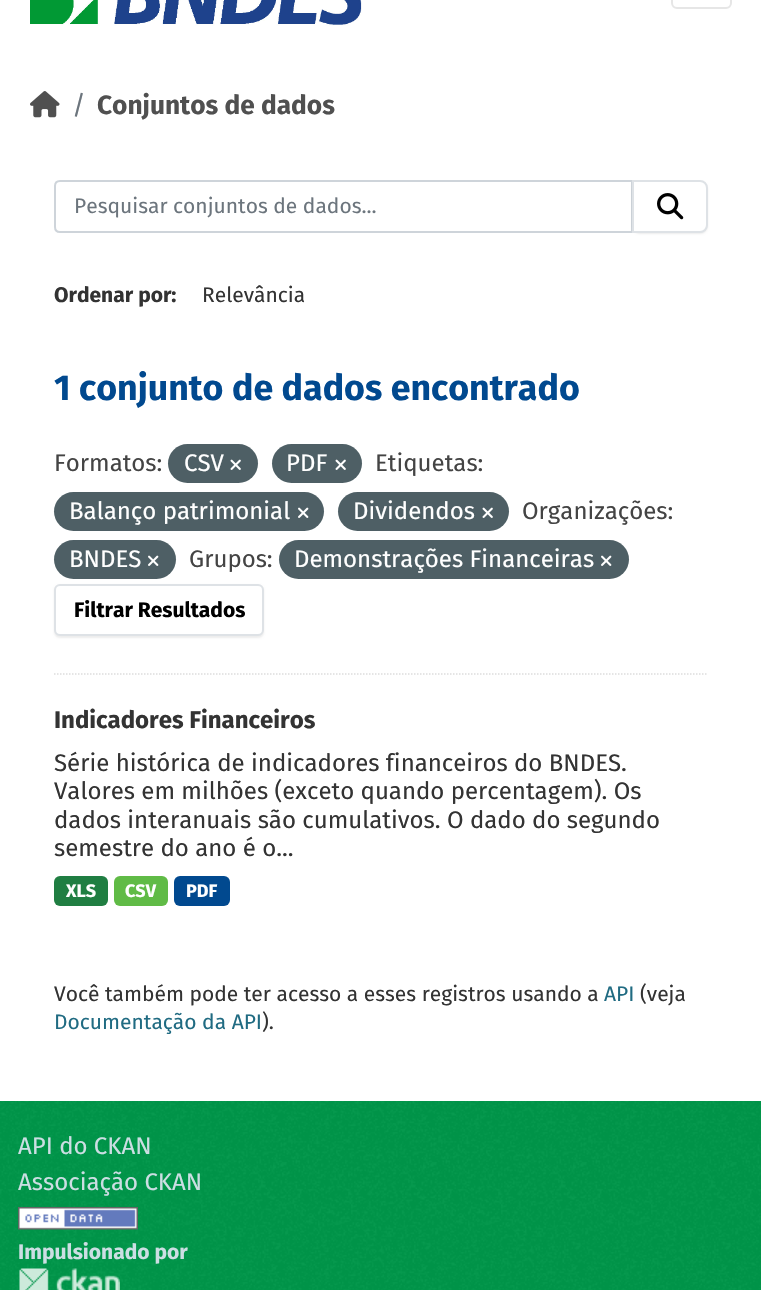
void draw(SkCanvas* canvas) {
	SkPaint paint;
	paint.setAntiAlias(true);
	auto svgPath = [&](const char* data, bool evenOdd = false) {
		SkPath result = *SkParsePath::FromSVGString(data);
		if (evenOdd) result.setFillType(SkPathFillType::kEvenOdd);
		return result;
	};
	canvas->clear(0xffffffff);
	canvas->drawImageRect(SkImages::DeferredFromEncodedData(SkData::MakeFromFileName("img1.png")), SkRect::MakeXYWH(30, 0, 332, 26), SkSamplingOptions());
	paint.setStroke(true);
	paint.setStrokeWidth(2);
	paint.setColor(0xffe6e6e6);
	canvas->drawRoundRect(SkRect::MakeXYWH(672, -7, 59, 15), 5, 5, paint);
	canvas->drawImageRect(SkImages::DeferredFromEncodedData(SkData::MakeFromFileName("img2.png")), SkRect::MakeXYWH(30, 91, 30, 27), SkSamplingOptions());
	SkFont f1(fontMgr->matchFamilyStyle("Fira Sans", SkFontStyle::Normal()), 26.25);
	f1.setSubpixel(true);
	paint.setStroke(false);
	paint.setColor(0xff6c757d);
	canvas->drawString("/", 72, 114, f1, paint);
	SkFont f2(fontMgr->matchFamilyStyle("Fira Sans", SkFontStyle::Bold()), 26.25);
	f2.setSubpixel(true);
	paint.setColor(0xff505050);
	canvas->drawString("Conjuntos de dados", 97, 114, f2, paint);
	paint.setStroke(true);
	paint.setStrokeWidth(1.5);
	paint.setColor(0xffdddddd);
	paint.setPathEffect(SkDashPathEffect::Make({{1.5f, 1.5f}}, 0));
	canvas->drawPath(svgPath("M54 674H708"), paint);
	paint.setPathEffect(nullptr);
	paint.setStrokeWidth(2);
	paint.setColor(0xffced4da);
	canvas->drawPath(svgPath("M60 181H632V232H60C57 232 55 230 55 227V186C55 183 57 181 60 181Z"), paint);
	SkFont f3(fontMgr->matchFamilyStyle("Fira Sans", SkFontStyle::Normal()), 21);
	f3.setSubpixel(true);
	paint.setStroke(false);
	paint.setColor(0xff6c757d);
	canvas->drawString("Pesquisar conjuntos de dados...", 74, 213, f3, paint);
	paint.setColor(0x12000000);
	paint.setMaskFilter(SkMaskFilter::MakeBlur(kNormal_SkBlurStyle, 1));
	canvas->drawRoundRect(SkRect::MakeXYWH(632, 182, 76, 52), 8, 8, paint);
	paint.setMaskFilter(nullptr);
	paint.setColor(0xffffffff);
	canvas->drawPath(svgPath("M633 181H700C704 181 707 184 707 188V225C707 229 704 232 700 232H633Z"), paint);
	paint.setStroke(true);
	paint.setColor(0xffdee2e6);
	canvas->drawPath(svgPath("M633 181H700C704 181 707 184 707 188V225C707 229 704 232 700 232H633Z"), paint);
	canvas->drawImageRect(SkImages::DeferredFromEncodedData(SkData::MakeFromFileName("img3.png")), SkRect::MakeXYWH(657, 193, 27, 27), SkSamplingOptions());
	SkFont f4(fontMgr->matchFamilyStyle("Fira Sans", SkFontStyle::Bold()), 21);
	f4.setSubpixel(true);
	paint.setStroke(false);
	paint.setColor(0xff333333);
	canvas->drawString("Ordenar por:", 54, 302, f4, paint);
	canvas->drawString("Relevância", 202, 302, f3, paint);
	SkFont f5(fontMgr->matchFamilyStyle("Fira Sans", SkFontStyle::Bold()), 35.75);
	f5.setSubpixel(true);
	paint.setColor(0xff01498f);
	canvas->drawString("1 conjunto de dados encontrado", 54, 400, f5, paint);
	SkFont f6(fontMgr->matchFamilyStyle("Fira Sans", SkFontStyle::Normal()), 24);
	f6.setSubpixel(true);
	paint.setColor(0xff444444);
	canvas->drawString("Formatos:", 54, 471, f6, paint);
	paint.setColor(0xff4e5f65);
	canvas->drawRoundRect(SkRect::MakeXYWH(168, 444, 90, 39), 19.5, 19.5, paint);
	paint.setColor(0xffffffff);
	canvas->drawString("CSV", 184, 471, f6, paint);
	canvas->drawImageRect(SkImages::DeferredFromEncodedData(SkData::MakeFromFileName("img4.png")), SkRect::MakeXYWH(230, 459, 11, 11), SkSamplingOptions());
	paint.setColor(0xff4e5f65);
	canvas->drawRoundRect(SkRect::MakeXYWH(272, 444, 90, 39), 19.5, 19.5, paint);
	paint.setColor(0xffffffff);
	canvas->drawString("PDF", 286, 471, f6, paint);
	canvas->drawImageRect(SkImages::DeferredFromEncodedData(SkData::MakeFromFileName("img4.png")), SkRect::MakeXYWH(335, 459, 11, 11), SkSamplingOptions());
	paint.setColor(0xff444444);
	canvas->drawString("Etiquetas:", 375, 471, f6, paint);
	paint.setColor(0xff4e5f65);
	canvas->drawRoundRect(SkRect::MakeXYWH(54, 492, 270, 39), 19.5, 19.5, paint);
	paint.setColor(0xffffffff);
	canvas->drawString("Balanço patrimonial", 69, 519, f6, paint);
	canvas->drawImageRect(SkImages::DeferredFromEncodedData(SkData::MakeFromFileName("img5.png")), SkRect::MakeXYWH(298, 507, 11, 11), SkSamplingOptions());
	paint.setColor(0xff4e5f65);
	canvas->drawRoundRect(SkRect::MakeXYWH(338, 492, 171, 39), 19.5, 19.5, paint);
	paint.setColor(0xffffffff);
	canvas->drawString("Dividendos", 353, 519, f6, paint);
	canvas->drawImageRect(SkImages::DeferredFromEncodedData(SkData::MakeFromFileName("img4.png")), SkRect::MakeXYWH(482, 507, 11, 11), SkSamplingOptions());
	paint.setColor(0xff444444);
	canvas->drawString("Organizações:", 522, 519, f6, paint);
	paint.setColor(0xff4e5f65);
	canvas->drawRoundRect(SkRect::MakeXYWH(54, 540, 122, 39), 19.5, 19.5, paint);
	paint.setColor(0xffffffff);
	canvas->drawString("BNDES", 69, 567, f6, paint);
	canvas->drawImageRect(SkImages::DeferredFromEncodedData(SkData::MakeFromFileName("img5.png")), SkRect::MakeXYWH(148, 555, 11, 11), SkSamplingOptions());
	paint.setColor(0xff444444);
	canvas->drawString("Grupos:", 189, 567, f6, paint);
	paint.setColor(0xff4e5f65);
	canvas->drawRoundRect(SkRect::MakeXYWH(279, 540, 350, 39), 19.5, 19.5, paint);
	paint.setColor(0xffffffff);
	canvas->drawString("Demonstrações Financeiras", 294, 567, f6, paint);
	canvas->drawImageRect(SkImages::DeferredFromEncodedData(SkData::MakeFromFileName("img5.png")), SkRect::MakeXYWH(601, 555, 11, 11), SkSamplingOptions());
	paint.setColor(0x12000000);
	paint.setMaskFilter(SkMaskFilter::MakeBlur(kNormal_SkBlurStyle, 1));
	canvas->drawRoundRect(SkRect::MakeXYWH(54, 585, 210, 53), 6, 6, paint);
	paint.setMaskFilter(nullptr);
	paint.setColor(0xffffffff);
	canvas->drawRoundRect(SkRect::MakeXYWH(55, 585, 208, 50), 5, 5, paint);
	paint.setStroke(true);
	paint.setColor(0xffdee2e6);
	canvas->drawRoundRect(SkRect::MakeXYWH(55, 585, 208, 50), 5, 5, paint);
	paint.setStroke(false);
	paint.setColor(0xff000000);
	canvas->drawString("Filtrar Resultados", 74, 617, f4, paint);
	SkFont f7(fontMgr->matchFamilyStyle("Fira Sans", SkFontStyle::Bold()), 24);
	f7.setSubpixel(true);
	paint.setColor(0xff333333);
	canvas->drawString("Indicadores Financeiros", 54, 728, f7, paint);
	canvas->drawString("Série histórica de indicadores financeiros do BNDES.", 54, 771, f6, paint);
	canvas->drawString("Valores em milhões (exceto quando percentagem). Os", 54, 799, f6, paint);
	canvas->drawString("dados interanuais são cumulativos. O dado do segundo", 54, 828, f6, paint);
	canvas->drawString("semestre do ano é o...", 54, 856, f6, paint);
	paint.setColor(0xff207e42);
	canvas->drawRoundRect(SkRect::MakeXYWH(54, 876, 54, 30), 6, 6, paint);
	SkFont f8(fontMgr->matchFamilyStyle("Fira Sans", SkFontStyle::Bold()), 18);
	f8.setSubpixel(true);
	paint.setColor(0xffffffff);
	canvas->drawString("XLS", 66, 897, f8, paint);
	paint.setColor(0xff60bb46);
	canvas->drawRoundRect(SkRect::MakeXYWH(114, 876, 54, 30), 6, 6, paint);
	paint.setColor(0xffffffff);
	canvas->drawString("CSV", 125, 897, f8, paint);
	paint.setColor(0xff01498f);
	canvas->drawRoundRect(SkRect::MakeXYWH(174, 876, 56, 30), 6, 6, paint);
	paint.setColor(0xffffffff);
	canvas->drawString("PDF", 186, 897, f8, paint);
	paint.setColor(0xff333333);
	canvas->drawString("Você também pode ter acesso a esses registros usando a", 54, 1001, f3, paint);
	paint.setColor(0xff206b82);
	canvas->drawString("API", 604, 1001, f3, paint);
	paint.setColor(0xff333333);
	canvas->drawString("(veja", 640, 1001, f3, paint);
	paint.setColor(0xff206b82);
	canvas->drawString("Documentação da API", 54, 1029, f3, paint);
	paint.setColor(0xff333333);
	canvas->drawString(").", 262, 1029, f3, paint);
	paint.setColor(0xff00984a);
	canvas->drawRect(SkRect::MakeXYWH(0, 1101, 761, 189), paint);
	canvas->drawImageRect(SkImages::DeferredFromEncodedData(SkData::MakeFromFileName("img6.png")), SkRect::MakeXYWH(0, 1101, 761, 189), SkSamplingOptions());
	paint.setColor(0xffccdee3);
	canvas->drawString("API do CKAN", 18, 1154, f6, paint);
	canvas->drawString("Associação CKAN", 18, 1190, f6, paint);
	canvas->drawImageRect(SkImages::DeferredFromEncodedData(SkData::MakeFromFileName("img7.png")), SkRect::MakeXYWH(18, 1207, 120, 23), SkSamplingOptions());
	canvas->drawString("Impulsionado por", 18, 1259, f4, paint);
	canvas->drawImageRect(SkImages::DeferredFromEncodedData(SkData::MakeFromFileName("img8.png")), SkRect::MakeXYWH(19, 1268, 101, 22), SkSamplingOptions());
}
